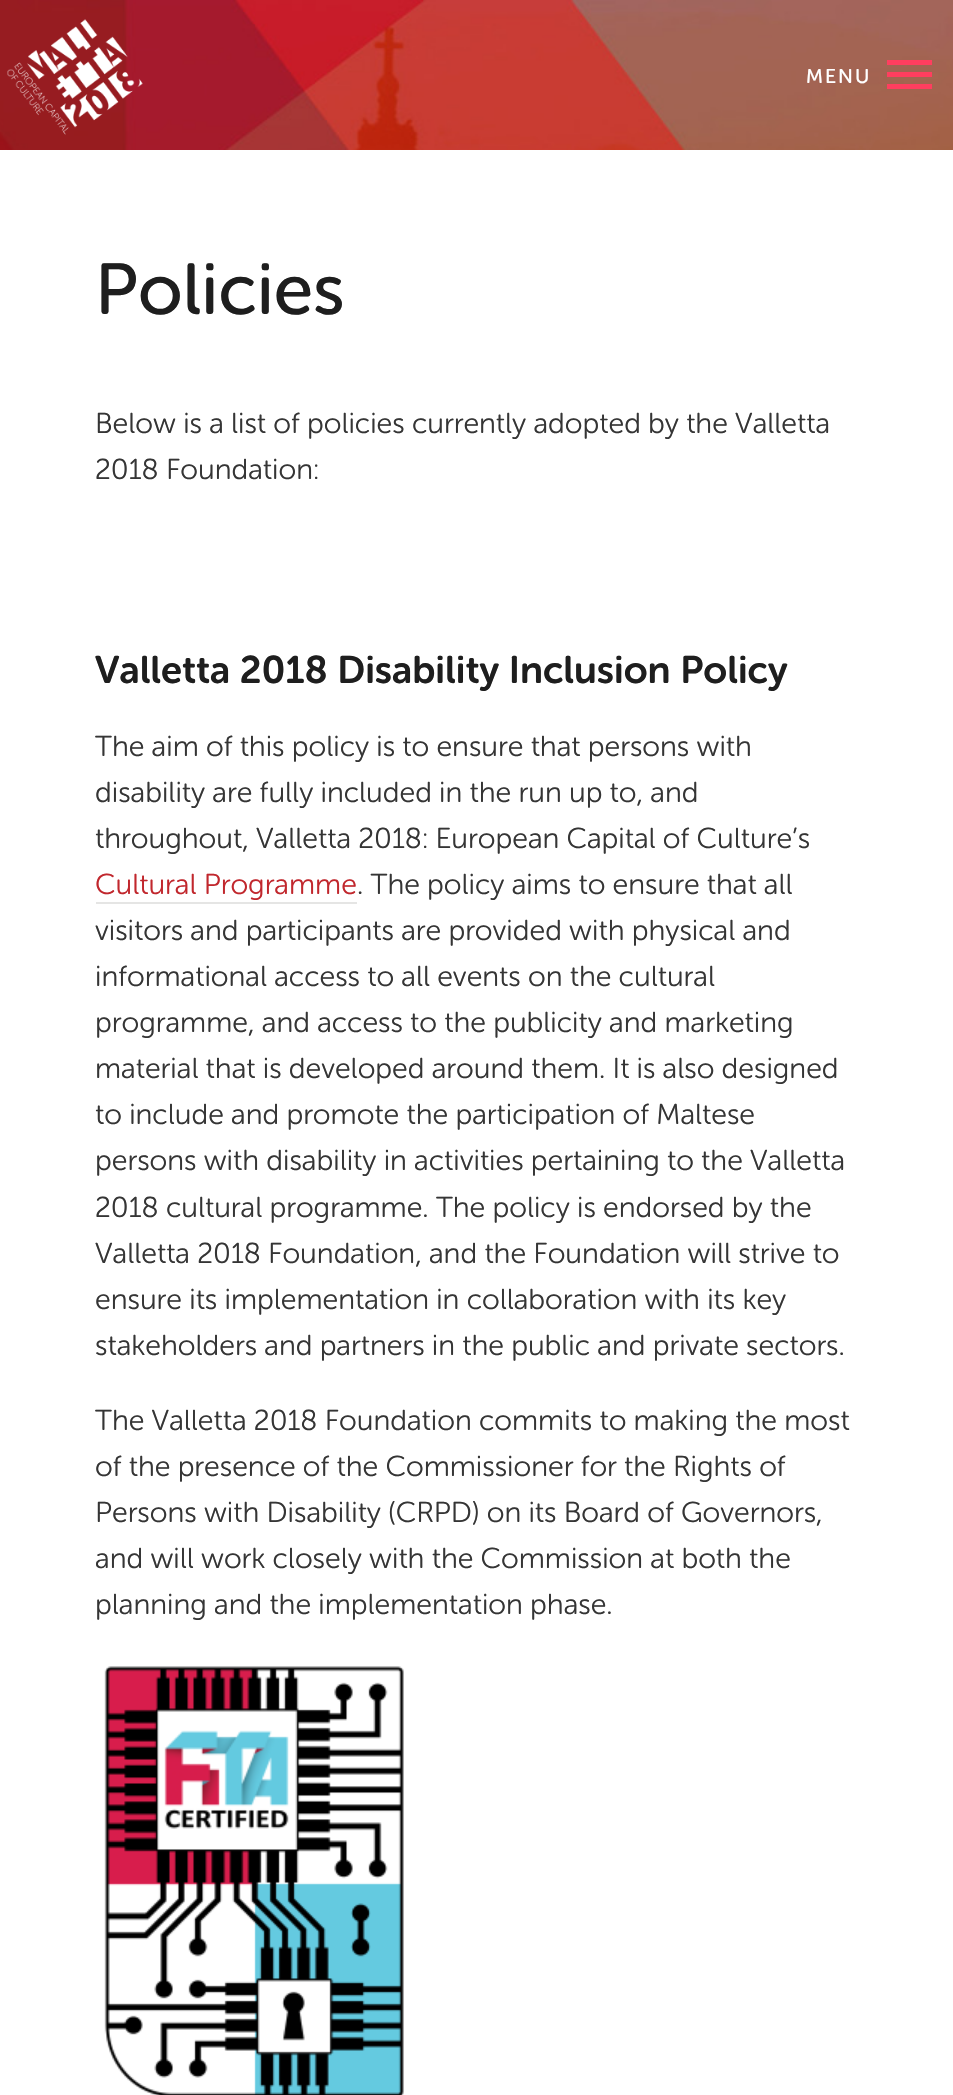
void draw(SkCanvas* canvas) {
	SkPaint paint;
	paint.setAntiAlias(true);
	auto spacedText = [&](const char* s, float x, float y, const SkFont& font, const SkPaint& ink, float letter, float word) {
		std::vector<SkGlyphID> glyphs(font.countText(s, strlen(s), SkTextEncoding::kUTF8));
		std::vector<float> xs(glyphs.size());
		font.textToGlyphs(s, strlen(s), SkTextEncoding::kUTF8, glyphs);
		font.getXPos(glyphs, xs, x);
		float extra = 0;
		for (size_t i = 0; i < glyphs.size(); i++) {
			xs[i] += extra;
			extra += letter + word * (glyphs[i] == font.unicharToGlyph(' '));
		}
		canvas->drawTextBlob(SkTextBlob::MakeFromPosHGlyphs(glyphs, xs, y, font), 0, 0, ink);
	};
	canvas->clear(0xffffffff);
	canvas->drawImageRect(SkImages::DeferredFromEncodedData(SkData::MakeFromFileName("img1.png")), SkRect::MakeXYWH(0, 0, 953, 150), SkSamplingOptions());
	canvas->drawImageRect(SkImages::DeferredFromEncodedData(SkData::MakeFromFileName("img2.png")), SkRect::MakeXYWH(7, 19, 136, 116), SkSamplingOptions());
	SkFont f1(fontMgr->matchFamilyStyle("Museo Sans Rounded", SkFontStyle::Normal()), 20);
	f1.setSubpixel(true);
	paint.setColor(0xffffffff);
	spacedText("MENU", 806, 83, f1, paint, 2, 0);
	paint.setColor(0xffff3e5f);
	canvas->drawRect(SkRect::MakeXYWH(887, 60, 45, 5), paint);
	canvas->drawRect(SkRect::MakeXYWH(887, 72, 45, 5), paint);
	canvas->drawRect(SkRect::MakeXYWH(887, 84, 45, 5), paint);
	SkFont f2(fontMgr->matchFamilyStyle("Museo Sans Rounded", SkFontStyle::Normal()), 72);
	f2.setSubpixel(true);
	paint.setColor(0xff1e1e1e);
	canvas->drawString("Policies", 95, 314, f2, paint);
	SkFont f3(fontMgr->matchFamilyStyle("Museo Sans Rounded", SkFontStyle(300, SkFontStyle::kNormal_Width, SkFontStyle::kUpright_Slant)), 28.8);
	f3.setSubpixel(true);
	paint.setColor(0xff353535);
	canvas->drawString("Below is a list of policies currently adopted by the Valletta", 95, 433, f3, paint);
	canvas->drawString("2018 Foundation:", 95, 479, f3, paint);
	SkFont f4(fontMgr->matchFamilyStyle("Museo Sans Rounded", SkFontStyle(600, SkFontStyle::kNormal_Width, SkFontStyle::kUpright_Slant)), 38.4);
	f4.setSubpixel(true);
	paint.setColor(0xff1e1e1e);
	canvas->drawString("Valletta 2018 Disability Inclusion Policy", 95, 683, f4, paint);
	paint.setColor(0xff353535);
	canvas->drawString("The aim of this policy is to ensure that persons with", 95, 756, f3, paint);
	canvas->drawString("disability are fully included in the run up to, and", 95, 802, f3, paint);
	canvas->drawString("throughout, Valletta 2018: European Capital of Culture’s", 95, 848, f3, paint);
	paint.setColor(0xffc1272d);
	canvas->drawString("Cultural Programme", 95, 894, f3, paint);
	paint.setColor(0xffe5e5e4);
	canvas->drawRect(SkRect::MakeXYWH(96, 902, 261, 2), paint);
	paint.setColor(0xff353535);
	canvas->drawString(". The policy aims to ensure that all", 357, 894, f3, paint);
	canvas->drawString("visitors and participants are provided with physical and", 95, 940, f3, paint);
	canvas->drawString("informational access to all events on the cultural", 95, 986, f3, paint);
	canvas->drawString("programme, and access to the publicity and marketing", 95, 1032, f3, paint);
	canvas->drawString("material that is developed around them. It is also designed", 95, 1078, f3, paint);
	canvas->drawString("to include and promote the participation of Maltese", 95, 1124, f3, paint);
	canvas->drawString("persons with disability in activities pertaining to the Valletta", 95, 1170, f3, paint);
	canvas->drawString("2018 cultural programme. The policy is endorsed by the", 95, 1217, f3, paint);
	canvas->drawString("Valletta 2018 Foundation, and the Foundation will strive to", 95, 1263, f3, paint);
	canvas->drawString("ensure its implementation in collaboration with its key", 95, 1309, f3, paint);
	canvas->drawString("stakeholders and partners in the public and private sectors.", 95, 1355, f3, paint);
	canvas->drawString("The Valletta 2018 Foundation commits to making the most", 95, 1430, f3, paint);
	canvas->drawString("of the presence of the Commissioner for the Rights of", 95, 1476, f3, paint);
	canvas->drawString("Persons with Disability (CRPD) on its Board of Governors,", 95, 1522, f3, paint);
	canvas->drawString("and will work closely with the Commission at both the", 95, 1568, f3, paint);
	canvas->drawString("planning and the implementation phase.", 95, 1614, f3, paint);
	canvas->drawImageRect(SkImages::DeferredFromEncodedData(SkData::MakeFromFileName("img3.png")), SkRect::MakeXYWH(104, 1666, 300, 429), SkSamplingOptions());
}
